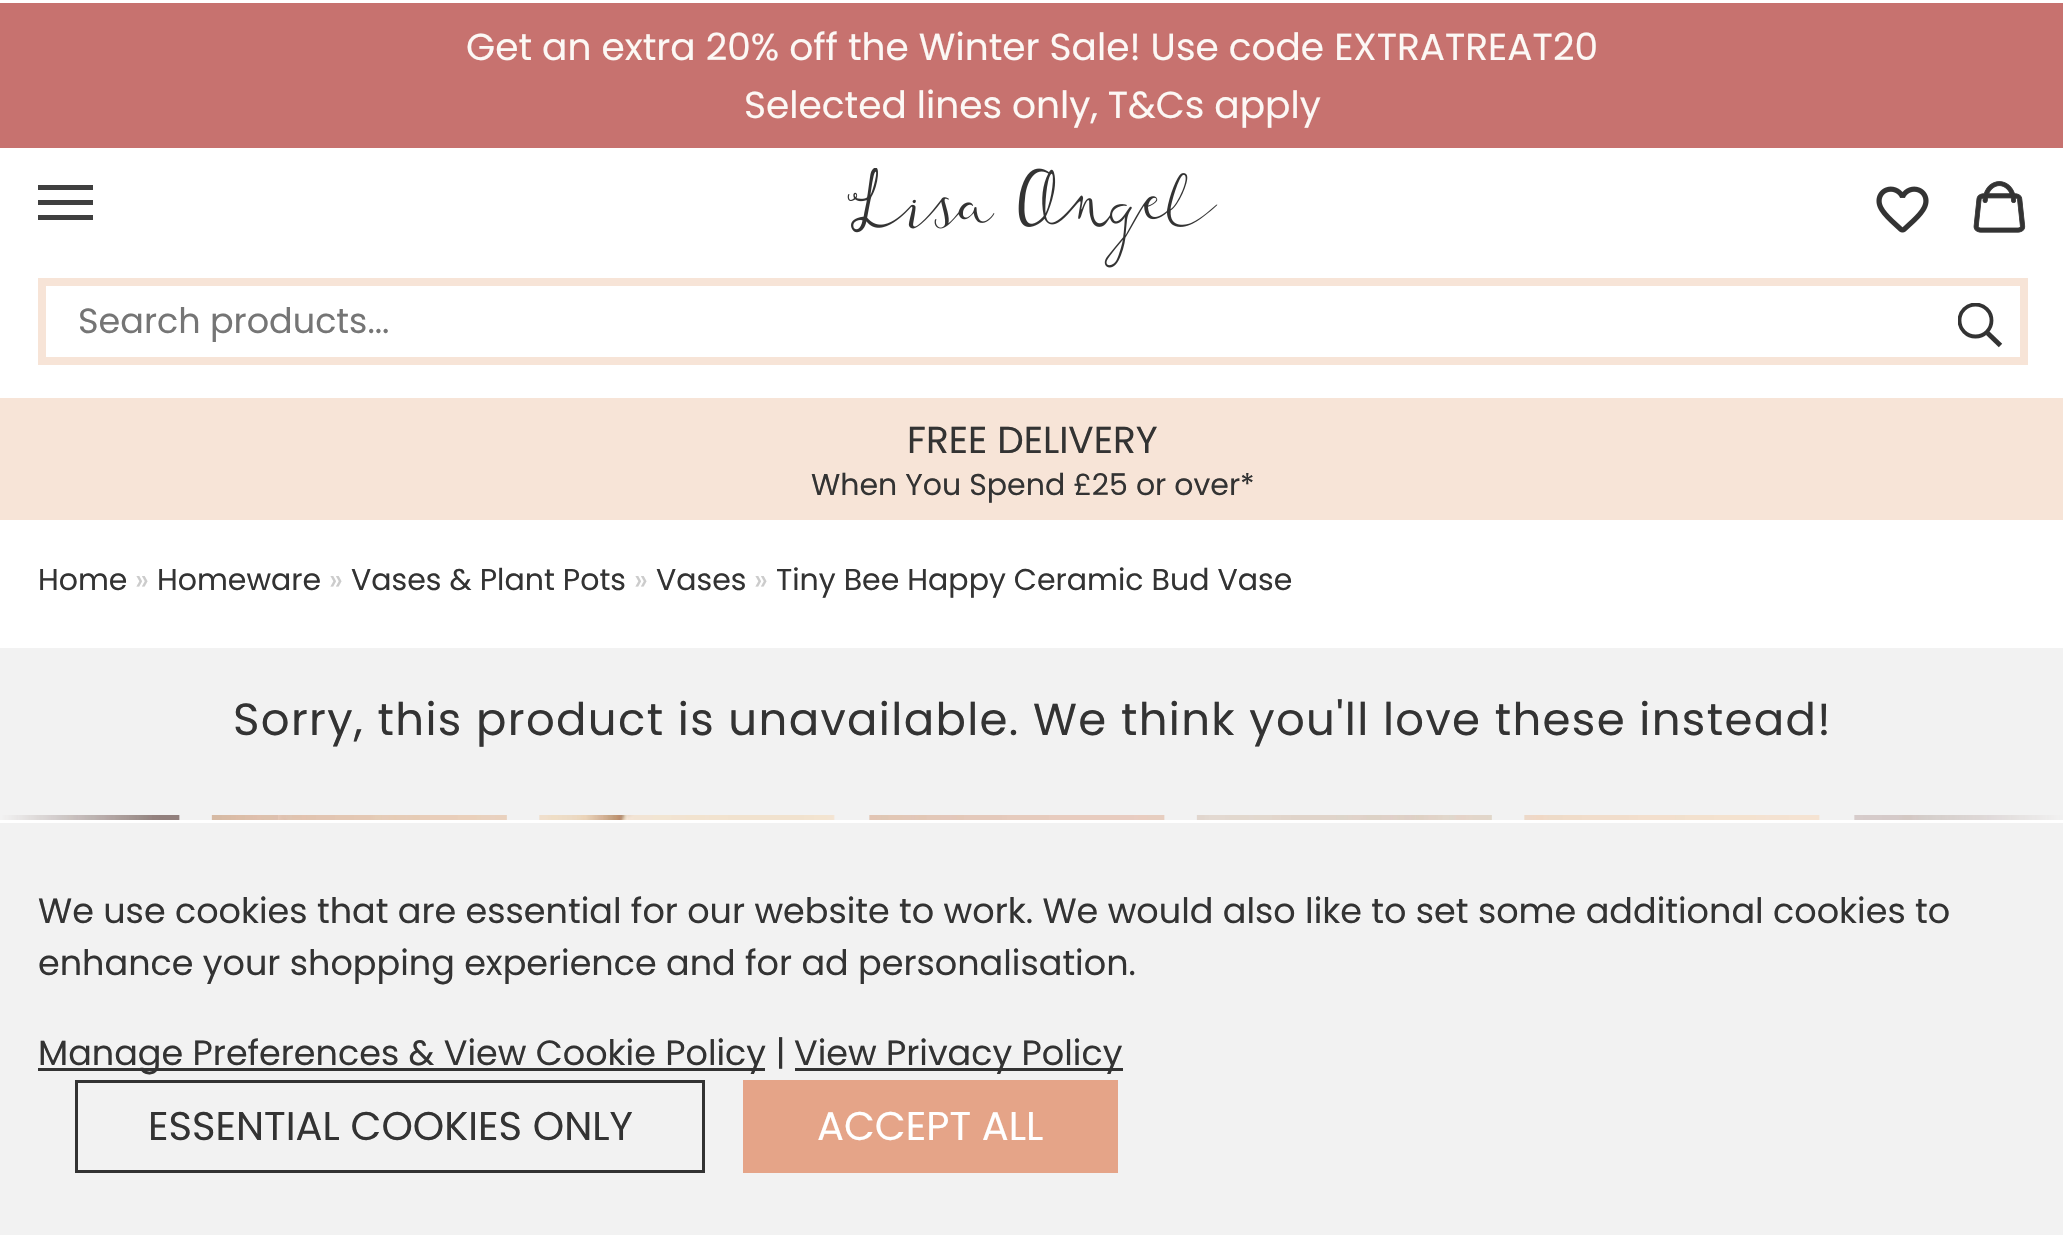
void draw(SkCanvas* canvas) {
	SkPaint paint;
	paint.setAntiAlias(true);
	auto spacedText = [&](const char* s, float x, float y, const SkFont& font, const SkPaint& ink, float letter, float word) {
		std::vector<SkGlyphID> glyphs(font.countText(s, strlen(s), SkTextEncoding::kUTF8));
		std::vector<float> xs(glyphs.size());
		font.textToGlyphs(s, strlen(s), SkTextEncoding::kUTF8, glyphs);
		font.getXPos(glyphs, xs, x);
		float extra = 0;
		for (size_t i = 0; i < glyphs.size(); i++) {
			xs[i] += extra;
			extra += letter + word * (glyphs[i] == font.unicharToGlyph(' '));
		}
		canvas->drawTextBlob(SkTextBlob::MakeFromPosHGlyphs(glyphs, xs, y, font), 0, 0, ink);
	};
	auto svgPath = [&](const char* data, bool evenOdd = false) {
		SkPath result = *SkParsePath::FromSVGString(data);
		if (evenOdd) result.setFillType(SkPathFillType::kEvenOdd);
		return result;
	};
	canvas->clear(0xffffffff);
	paint.setColor(0xffc7726f);
	canvas->drawRect(SkRect::MakeXYWH(0, 3, 2063, 145), paint);
	SkFont f1(fontMgr->matchFamilyStyle("Poppins", SkFontStyle::Normal()), 37.5);
	f1.setSubpixel(true);
	paint.setColor(0xfffcf8f5);
	canvas->drawString("Get an extra 20% off the Winter Sale! Use code EXTRATREAT20", 466, 60, f1, paint);
	canvas->drawString("Selected lines only, T&Cs apply", 744, 118, f1, paint);
	paint.setColor(0xff3f3f3f);
	canvas->drawRect(SkRect::MakeXYWH(38, 185, 55, 5), paint);
	canvas->drawRect(SkRect::MakeXYWH(38, 200, 55, 5), paint);
	canvas->drawRect(SkRect::MakeXYWH(38, 215, 55, 5), paint);
	canvas->drawImageRect(SkImages::DeferredFromEncodedData(SkData::MakeFromFileName("img1.png")), SkRect::MakeXYWH(847, 168, 371, 100), SkSamplingOptions());
	canvas->drawImageRect(SkImages::DeferredFromEncodedData(SkData::MakeFromFileName("img2.png")), SkRect::MakeXYWH(1876, 186, 53, 47), SkSamplingOptions());
	canvas->drawImageRect(SkImages::DeferredFromEncodedData(SkData::MakeFromFileName("img3.png")), SkRect::MakeXYWH(1973, 181, 53, 52), SkSamplingOptions());
	paint.setStroke(true);
	paint.setStrokeWidth(8);
	paint.setColor(0xfff7e4d7);
	canvas->drawRect(SkRect::MakeXYWH(42, 282, 1982, 79), paint);
	SkFont f2(fontMgr->matchFamilyStyle("Poppins", SkFontStyle::Normal()), 35);
	f2.setSubpixel(true);
	paint.setStroke(false);
	paint.setColor(0xff757575);
	canvas->drawString("Search products...", 78, 333, f2, paint);
	canvas->save();
	canvas->clipRect(SkRect::MakeXYWH(1958, 303, 45, 45));
	paint.setStroke(true);
	paint.setStrokeWidth(3.8);
	paint.setColor(0xff333333);
	canvas->drawCircle(1975.5, 320.5, 16, paint);
	canvas->restore();
	paint.setStrokeWidth(4.9);
	canvas->drawPath(svgPath("M1987.5 333L2000.5 345.5"), paint);
	paint.setStroke(false);
	paint.setColor(0xfff7e4d7);
	canvas->drawRect(SkRect::MakeXYWH(0, 398, 2063, 122), paint);
	paint.setColor(0xff333333);
	canvas->drawString("FREE DELIVERY", 907, 453, f1, paint);
	SkFont f3(fontMgr->matchFamilyStyle("Poppins", SkFontStyle::Normal()), 30);
	f3.setSubpixel(true);
	canvas->drawString("When You Spend £25 or over*", 811, 495, f3, paint);
	canvas->drawString("Home", 38, 590, f3, paint);
	paint.setColor(0xffcccccc);
	canvas->drawString("»", 135, 590, f3, paint);
	paint.setColor(0xff333333);
	canvas->drawString("Homeware", 157, 590, f3, paint);
	paint.setColor(0xffcccccc);
	canvas->drawString("»", 329, 590, f3, paint);
	paint.setColor(0xff333333);
	canvas->drawString("Vases & Plant Pots", 351, 590, f3, paint);
	paint.setColor(0xffcccccc);
	canvas->drawString("»", 634, 590, f3, paint);
	paint.setColor(0xff333333);
	canvas->drawString("Vases", 656, 590, f3, paint);
	paint.setColor(0xffcccccc);
	canvas->drawString("»", 754, 590, f3, paint);
	paint.setColor(0xff333333);
	canvas->drawString("Tiny Bee Happy Ceramic Bud Vase", 776, 590, f3, paint);
	paint.setColor(0xfff2f2f2);
	canvas->drawRect(SkRect::MakeXYWH(0, 648, 2063, 172), paint);
	SkFont f4(fontMgr->matchFamilyStyle("Poppins", SkFontStyle::Normal()), 45);
	f4.setSubpixel(true);
	paint.setColor(0xff333333);
	spacedText("Sorry, this product is unavailable. We think you'll love these instead!", 233, 735, f4, paint, 1.35, 0);
	canvas->drawImageRect(SkImages::DeferredFromEncodedData(SkData::MakeFromFileName("img4.png")), SkRect::MakeXYWH(1, 815, 179, 5), SkSamplingOptions());
	{
		const SkColor colors[] = {0xfff2f2f2, 0x00f2f2f2};
		const float stops[] = {0, 1};
		const SkPoint ends[] = {{0, 768}, {155, 768}};
		paint.setShader(SkGradientShader::MakeLinear(ends, colors, stops, 2, SkTileMode::kClamp));
		paint.setAlpha(255);
	}
	canvas->drawRect(SkRect::MakeXYWH(0, 815, 152, 5), paint);
	canvas->drawImageRect(SkImages::DeferredFromEncodedData(SkData::MakeFromFileName("img5.png")), SkRect::MakeXYWH(211, 815, 296, 5), SkSamplingOptions());
	canvas->drawImageRect(SkImages::DeferredFromEncodedData(SkData::MakeFromFileName("img6.png")), SkRect::MakeXYWH(539, 815, 296, 5), SkSamplingOptions());
	canvas->drawImageRect(SkImages::DeferredFromEncodedData(SkData::MakeFromFileName("img7.png")), SkRect::MakeXYWH(869, 815, 296, 5), SkSamplingOptions());
	canvas->drawImageRect(SkImages::DeferredFromEncodedData(SkData::MakeFromFileName("img8.png")), SkRect::MakeXYWH(1196, 815, 296, 5), SkSamplingOptions());
	canvas->drawImageRect(SkImages::DeferredFromEncodedData(SkData::MakeFromFileName("img9.png")), SkRect::MakeXYWH(1524, 815, 296, 5), SkSamplingOptions());
	canvas->drawImageRect(SkImages::DeferredFromEncodedData(SkData::MakeFromFileName("img10.png")), SkRect::MakeXYWH(1854, 815, 209, 5), SkSamplingOptions());
	{
		const SkColor colors[] = {0x00f2f2f2, 0xfff2f2f2};
		const float stops[] = {0, 1};
		const SkPoint ends[] = {{1910, 768}, {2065, 768}};
		paint.setShader(SkGradientShader::MakeLinear(ends, colors, stops, 2, SkTileMode::kClamp));
		paint.setAlpha(255);
	}
	canvas->drawRect(SkRect::MakeXYWH(1913, 815, 150, 5), paint);
	paint.setShader(nullptr);
	paint.setColor(0xfff2f2f2);
	canvas->drawRect(SkRect::MakeXYWH(0, 823, 2063, 412), paint);
	paint.setColor(0xff333333);
	canvas->drawString("We use cookies that are essential for our website to work. We would also like to set some additional cookies to", 38, 923, f2, paint);
	canvas->drawString("enhance your shopping experience and for ad personalisation.", 38, 975, f2, paint);
	canvas->drawRect(SkRect::MakeXYWH(38, 1068, 727, 3), paint);
	canvas->drawString("Manage Preferences & View Cookie Policy |", 38, 1065, f2, paint);
	canvas->drawRect(SkRect::MakeXYWH(795, 1068, 328, 3), paint);
	canvas->drawString("View Privacy Policy", 794, 1065, f2, paint);
	paint.setStroke(true);
	paint.setStrokeWidth(3);
	canvas->drawRect(SkRect::MakeXYWH(76.5, 1081.5, 627, 90), paint);
	SkFont f5(fontMgr->matchFamilyStyle("Poppins", SkFontStyle::Normal()), 40);
	f5.setSubpixel(true);
	paint.setStroke(false);
	canvas->drawString("ESSENTIAL COOKIES ONLY", 148, 1140, f5, paint);
	paint.setColor(0xffe5a488);
	canvas->drawRect(SkRect::MakeXYWH(743, 1080, 375, 93), paint);
	paint.setColor(0xffffffff);
	canvas->drawString("ACCEPT ALL", 817, 1140, f5, paint);
}
